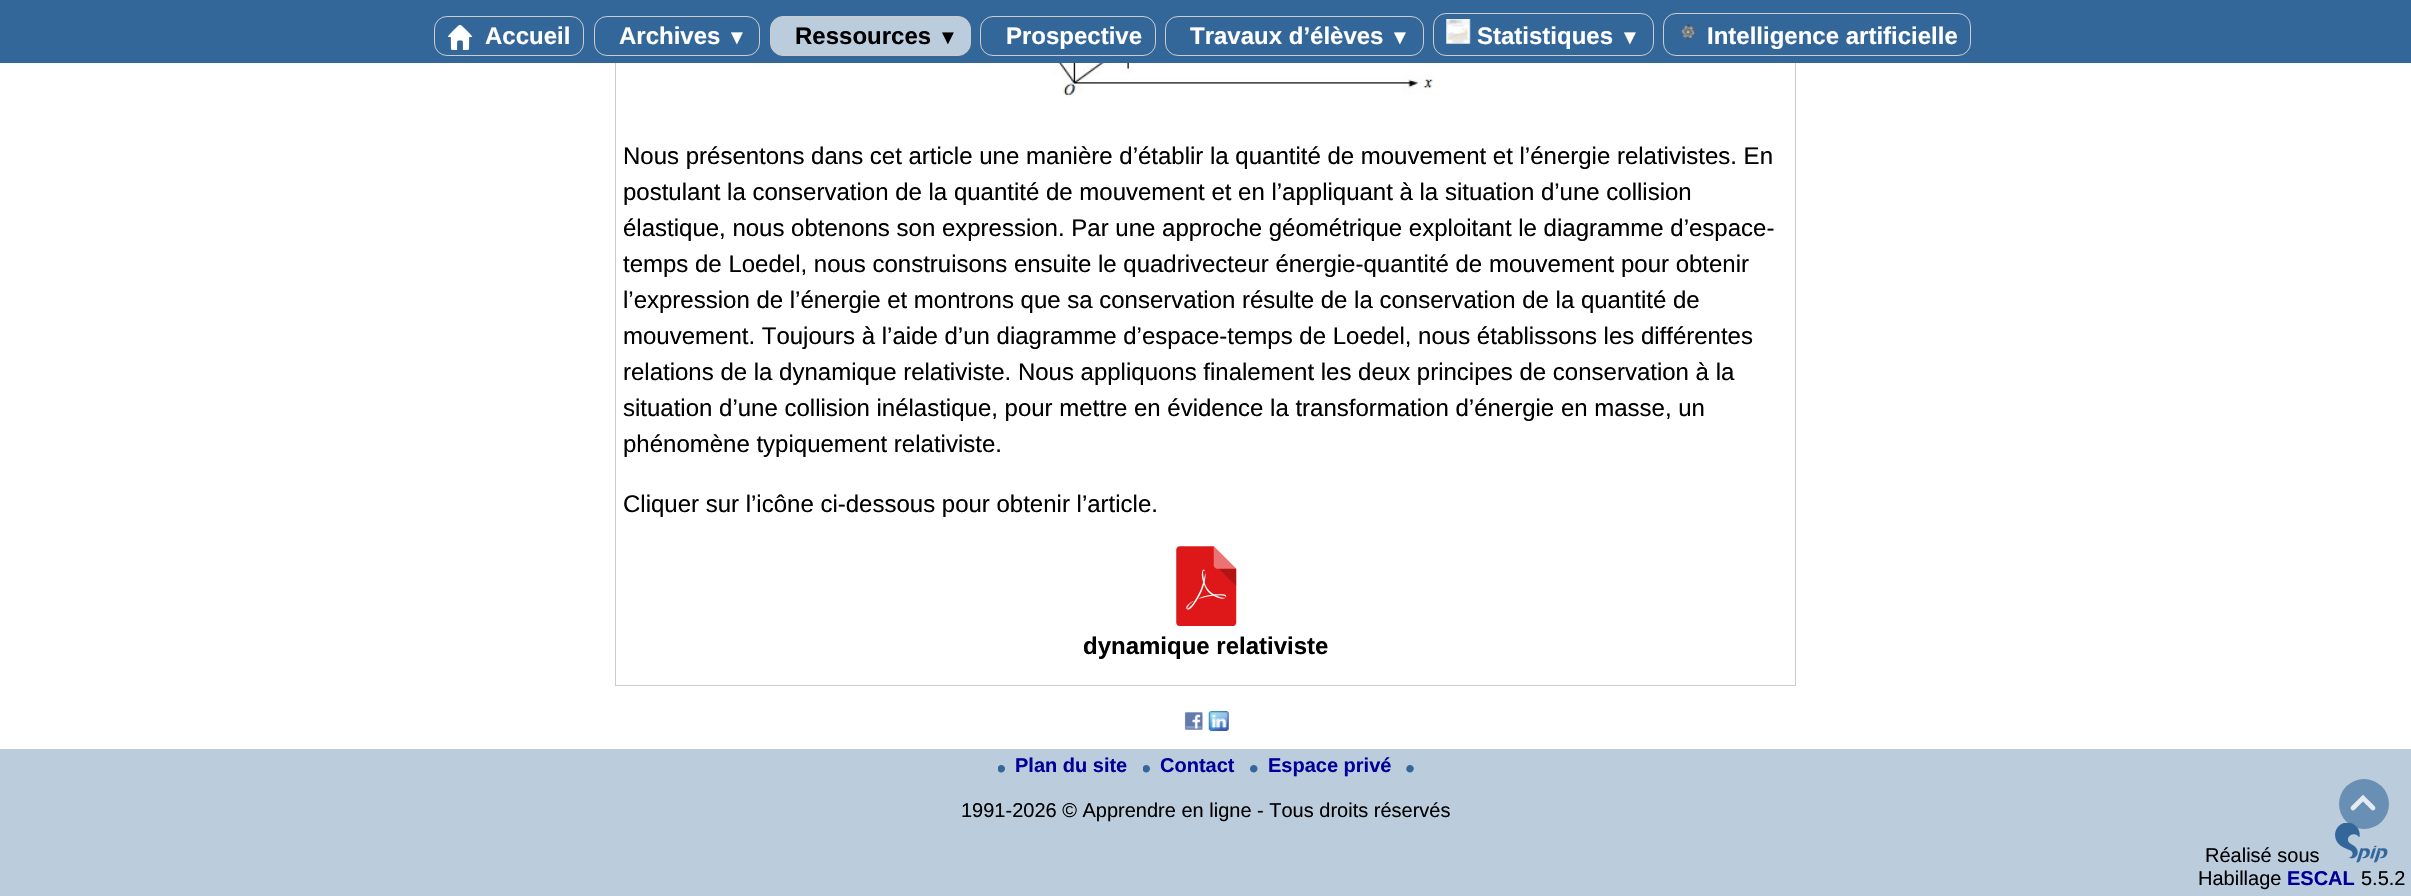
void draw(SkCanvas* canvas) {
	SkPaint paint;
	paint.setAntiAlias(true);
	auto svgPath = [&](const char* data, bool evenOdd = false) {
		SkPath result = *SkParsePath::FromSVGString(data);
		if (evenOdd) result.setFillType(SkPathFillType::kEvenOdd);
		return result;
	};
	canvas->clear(0xffffffff);
	paint.setStroke(true);
	paint.setStrokeWidth(1);
	paint.setColor(0xffcccccc);
	canvas->drawRect(SkRect::MakeXYWH(615.5, -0.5, 1180, 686), paint);
	paint.setStroke(false);
	paint.setColor(0xff336699);
	canvas->drawRect(SkRect::MakeXYWH(0, 0, 2411, 63), paint);
	paint.setStroke(true);
	paint.setColor(0xffcccccc);
	canvas->drawRoundRect(SkRect::MakeXYWH(434.5, 16.5, 149, 39), 12.5, 12.5, paint);
	canvas->drawImageRect(SkImages::DeferredFromEncodedData(SkData::MakeFromFileName("img1.png")), SkRect::MakeXYWH(448, 25, 25, 25), SkSamplingOptions());
	SkFont f1(fontMgr->matchFamilyStyle("Liberation Sans", SkFontStyle::Bold()), 24);
	f1.setSubpixel(true);
	paint.setStroke(false);
	paint.setColor(0xffffffff);
	canvas->drawString("Accueil", 485, 44, f1, paint);
	paint.setStroke(true);
	paint.setColor(0xffcccccc);
	canvas->drawRoundRect(SkRect::MakeXYWH(594.5, 16.5, 165, 39), 12.5, 12.5, paint);
	paint.setStroke(false);
	paint.setColor(0xffffffff);
	canvas->drawString("Archives", 619, 44, f1, paint);
	SkFont f2(fontMgr->matchFamilyStyle("Liberation Sans", SkFontStyle::Bold()), 20);
	f2.setSubpixel(true);
	canvas->drawString("▼", 727, 44, f2, paint);
	paint.setColor(0xffbbccdd);
	canvas->drawRoundRect(SkRect::MakeXYWH(770.5, 16.5, 200, 39), 12.5, 12.5, paint);
	paint.setStroke(true);
	paint.setColor(0xffcccccc);
	canvas->drawRoundRect(SkRect::MakeXYWH(770.5, 16.5, 200, 39), 12.5, 12.5, paint);
	paint.setStroke(false);
	paint.setColor(0xff000000);
	canvas->drawString("Ressources", 795, 44, f1, paint);
	canvas->drawString("▼", 938, 44, f2, paint);
	paint.setStroke(true);
	paint.setColor(0xffcccccc);
	canvas->drawRoundRect(SkRect::MakeXYWH(980.5, 16.5, 175, 39), 12.5, 12.5, paint);
	paint.setStroke(false);
	paint.setColor(0xffffffff);
	canvas->drawString("Prospective", 1006, 44, f1, paint);
	paint.setStroke(true);
	paint.setColor(0xffcccccc);
	canvas->drawRoundRect(SkRect::MakeXYWH(1165.5, 16.5, 258, 39), 12.5, 12.5, paint);
	paint.setStroke(false);
	paint.setColor(0xffffffff);
	canvas->drawString("Travaux d’élèves", 1190, 44, f1, paint);
	canvas->drawString("▼", 1390, 44, f2, paint);
	paint.setStroke(true);
	paint.setColor(0xffcccccc);
	canvas->drawRoundRect(SkRect::MakeXYWH(1433.5, 13.5, 220, 42), 12.5, 12.5, paint);
	canvas->drawImageRect(SkImages::DeferredFromEncodedData(SkData::MakeFromFileName("img2.png")), SkRect::MakeXYWH(1446, 19, 25, 25), SkSamplingOptions());
	paint.setStroke(false);
	paint.setColor(0xffffffff);
	canvas->drawString("Statistiques", 1477, 44, f1, paint);
	canvas->drawString("▼", 1620, 44, f2, paint);
	paint.setStroke(true);
	paint.setColor(0xffcccccc);
	canvas->drawRoundRect(SkRect::MakeXYWH(1663.5, 13.5, 307, 42), 12.5, 12.5, paint);
	canvas->drawImageRect(SkImages::DeferredFromEncodedData(SkData::MakeFromFileName("img3.png")), SkRect::MakeXYWH(1681, 24, 15, 16), SkSamplingOptions());
	paint.setStroke(false);
	paint.setColor(0xffffffff);
	canvas->drawString("Intelligence artificielle", 1707, 44, f1, paint);
	canvas->drawImageRect(SkImages::DeferredFromEncodedData(SkData::MakeFromFileName("img4.png")), SkRect::MakeXYWH(1004, 63, 436, 34), SkSamplingOptions());
	SkFont f3(fontMgr->matchFamilyStyle("Liberation Sans", SkFontStyle::Normal()), 24);
	f3.setSubpixel(true);
	paint.setColor(0xff000000);
	canvas->drawString("Nous présentons dans cet article une manière d’établir la quantité de mouvement et l’énergie relativistes. En", 623, 164, f3, paint);
	canvas->drawString("postulant la conservation de la quantité de mouvement et en l’appliquant à la situation d’une collision", 623, 200, f3, paint);
	canvas->drawString("élastique, nous obtenons son expression. Par une approche géométrique exploitant le diagramme d’espace-", 623, 236, f3, paint);
	canvas->drawString("temps de Loedel, nous construisons ensuite le quadrivecteur énergie-quantité de mouvement pour obtenir", 623, 272, f3, paint);
	canvas->drawString("l’expression de l’énergie et montrons que sa conservation résulte de la conservation de la quantité de", 623, 308, f3, paint);
	canvas->drawString("mouvement. Toujours à l’aide d’un diagramme d’espace-temps de Loedel, nous établissons les différentes", 623, 344, f3, paint);
	canvas->drawString("relations de la dynamique relativiste. Nous appliquons finalement les deux principes de conservation à la", 623, 380, f3, paint);
	canvas->drawString("situation d’une collision inélastique, pour mettre en évidence la transformation d’énergie en masse, un", 623, 416, f3, paint);
	canvas->drawString("phénomène typiquement relativiste.", 623, 452, f3, paint);
	canvas->drawString("Cliquer sur l’icône ci-dessous pour obtenir l’article.", 623, 512, f3, paint);
	canvas->drawImageRect(SkImages::DeferredFromEncodedData(SkData::MakeFromFileName("img5.png")), SkRect::MakeXYWH(1176, 546, 61, 80), SkSamplingOptions());
	canvas->drawString("dynamique relativiste", 1083, 654, f1, paint);
	canvas->drawImageRect(SkImages::DeferredFromEncodedData(SkData::MakeFromFileName("img6.png")), SkRect::MakeXYWH(1184, 712, 19, 18), SkSamplingOptions());
	canvas->drawImageRect(SkImages::DeferredFromEncodedData(SkData::MakeFromFileName("img7.png")), SkRect::MakeXYWH(1208, 711, 21, 20), SkSamplingOptions());
	paint.setColor(0xffbbccdd);
	canvas->drawRect(SkRect::MakeXYWH(0, 749, 2411, 147), paint);
	canvas->drawImageRect(SkImages::DeferredFromEncodedData(SkData::MakeFromFileName("img8.png")), SkRect::MakeXYWH(998, 765, 7, 8), SkSamplingOptions());
	paint.setColor(0xff000099);
	canvas->drawString("Plan du site", 1015, 772, f2, paint);
	canvas->drawImageRect(SkImages::DeferredFromEncodedData(SkData::MakeFromFileName("img8.png")), SkRect::MakeXYWH(1143, 765, 7, 8), SkSamplingOptions());
	canvas->drawString("Contact", 1160, 772, f2, paint);
	canvas->drawImageRect(SkImages::DeferredFromEncodedData(SkData::MakeFromFileName("img9.png")), SkRect::MakeXYWH(1250, 765, 8, 8), SkSamplingOptions());
	canvas->drawString("Espace privé", 1268, 772, f2, paint);
	canvas->drawImageRect(SkImages::DeferredFromEncodedData(SkData::MakeFromFileName("img10.png")), SkRect::MakeXYWH(1406, 765, 8, 8), SkSamplingOptions());
	SkFont f4(fontMgr->matchFamilyStyle("Liberation Sans", SkFontStyle::Normal()), 20);
	f4.setSubpixel(true);
	paint.setColor(0xff000000);
	canvas->drawString("1991-2026 © Apprendre en ligne - Tous droits réservés", 961, 817, f4, paint);
	canvas->drawImageRect(SkImages::DeferredFromEncodedData(SkData::MakeFromFileName("img11.png")), SkRect::MakeXYWH(2335, 823, 53, 40), SkSamplingOptions());
	paint.setColor(0x99336699);
	canvas->drawCircle(2364, 804, 25, paint);
	paint.setStroke(true);
	paint.setStrokeWidth(4.7);
	paint.setStrokeCap(SkPaint::kRound_Cap);
	paint.setColor(0xffe4ebf1);
	canvas->drawPath(svgPath("M2353 808L2363 798L2373 808"), paint);
	paint.setStroke(false);
	paint.setColor(0xff000000);
	canvas->drawString("Réalisé sous", 2205, 862, f4, paint);
	canvas->drawString("Habillage", 2198, 885, f4, paint);
	paint.setColor(0xff000099);
	canvas->drawString("ESCAL", 2287, 885, f2, paint);
	paint.setColor(0xff000000);
	canvas->drawString("5.5.2", 2361, 885, f4, paint);
}
